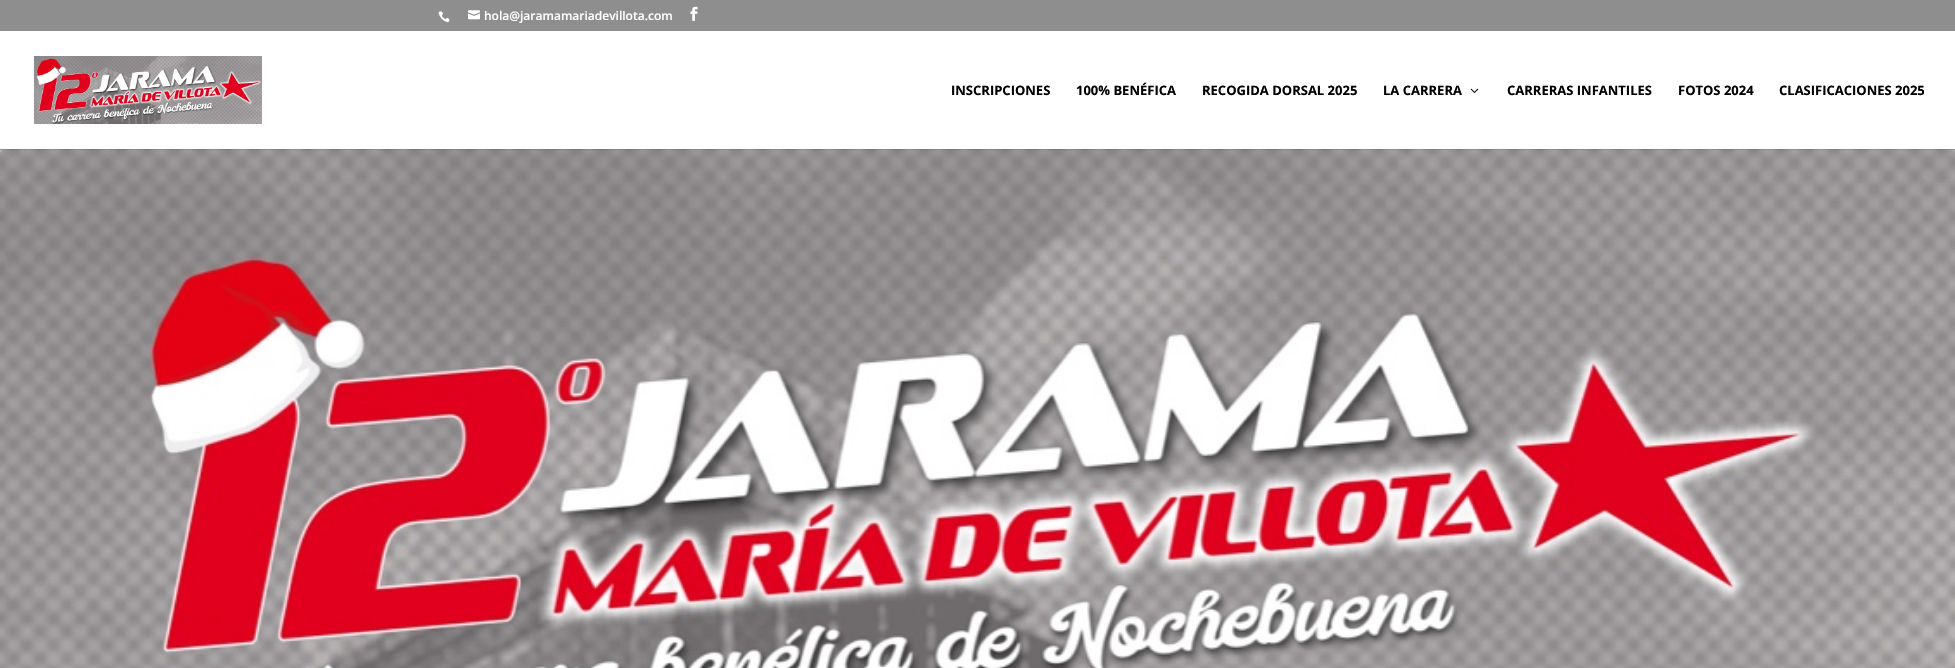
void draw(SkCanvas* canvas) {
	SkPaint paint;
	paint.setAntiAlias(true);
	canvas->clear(0xffffffff);
	paint.setColor(0xff8e8e8e);
	canvas->drawRect(SkRect::MakeXYWH(0, 0, 1955, 31), paint);
	canvas->drawImageRect(SkImages::DeferredFromEncodedData(SkData::MakeFromFileName("img1.png")), SkRect::MakeXYWH(438, 11, 12, 12), SkSamplingOptions());
	canvas->drawImageRect(SkImages::DeferredFromEncodedData(SkData::MakeFromFileName("img2.png")), SkRect::MakeXYWH(468, 10, 12, 10), SkSamplingOptions());
	SkFont f1(fontMgr->matchFamilyStyle("Open Sans", SkFontStyle(600, SkFontStyle::kNormal_Width, SkFontStyle::kUpright_Slant)), 12);
	f1.setSubpixel(true);
	paint.setColor(0xffffffff);
	canvas->drawString("hola@jaramamariadevillota.com", 484, 20, f1, paint);
	canvas->drawImageRect(SkImages::DeferredFromEncodedData(SkData::MakeFromFileName("img3.png")), SkRect::MakeXYWH(690, 6, 8, 15), SkSamplingOptions());
	canvas->drawImageRect(SkImages::DeferredFromEncodedData(SkData::MakeFromFileName("img6.png")), SkRect::MakeXYWH(0, 149, 1955, 519), SkSamplingOptions());
	paint.setColor(0x1a000000);
	canvas->drawRect(SkRect::MakeXYWH(0, 149, 1955, 1), paint);
	canvas->drawImageRect(SkImages::DeferredFromEncodedData(SkData::MakeFromFileName("img4.png")), SkRect::MakeXYWH(34, 56, 228, 68), SkSamplingOptions());
	SkFont f2(fontMgr->matchFamilyStyle("Open Sans", SkFontStyle::Bold()), 13);
	f2.setSubpixel(true);
	paint.setColor(0xff000000);
	canvas->drawString("INSCRIPCIONES", 951, 95, f2, paint);
	canvas->drawString("100% BENÉFICA", 1076, 95, f2, paint);
	canvas->drawString("RECOGIDA DORSAL 2025", 1202, 95, f2, paint);
	canvas->drawString("LA CARRERA", 1383, 95, f2, paint);
	canvas->drawImageRect(SkImages::DeferredFromEncodedData(SkData::MakeFromFileName("img5.png")), SkRect::MakeXYWH(1470, 88, 9, 5), SkSamplingOptions());
	canvas->drawString("CARRERAS INFANTILES", 1507, 95, f2, paint);
	canvas->drawString("FOTOS 2024", 1678, 95, f2, paint);
	canvas->drawString("CLASIFICACIONES 2025", 1779, 95, f2, paint);
}
